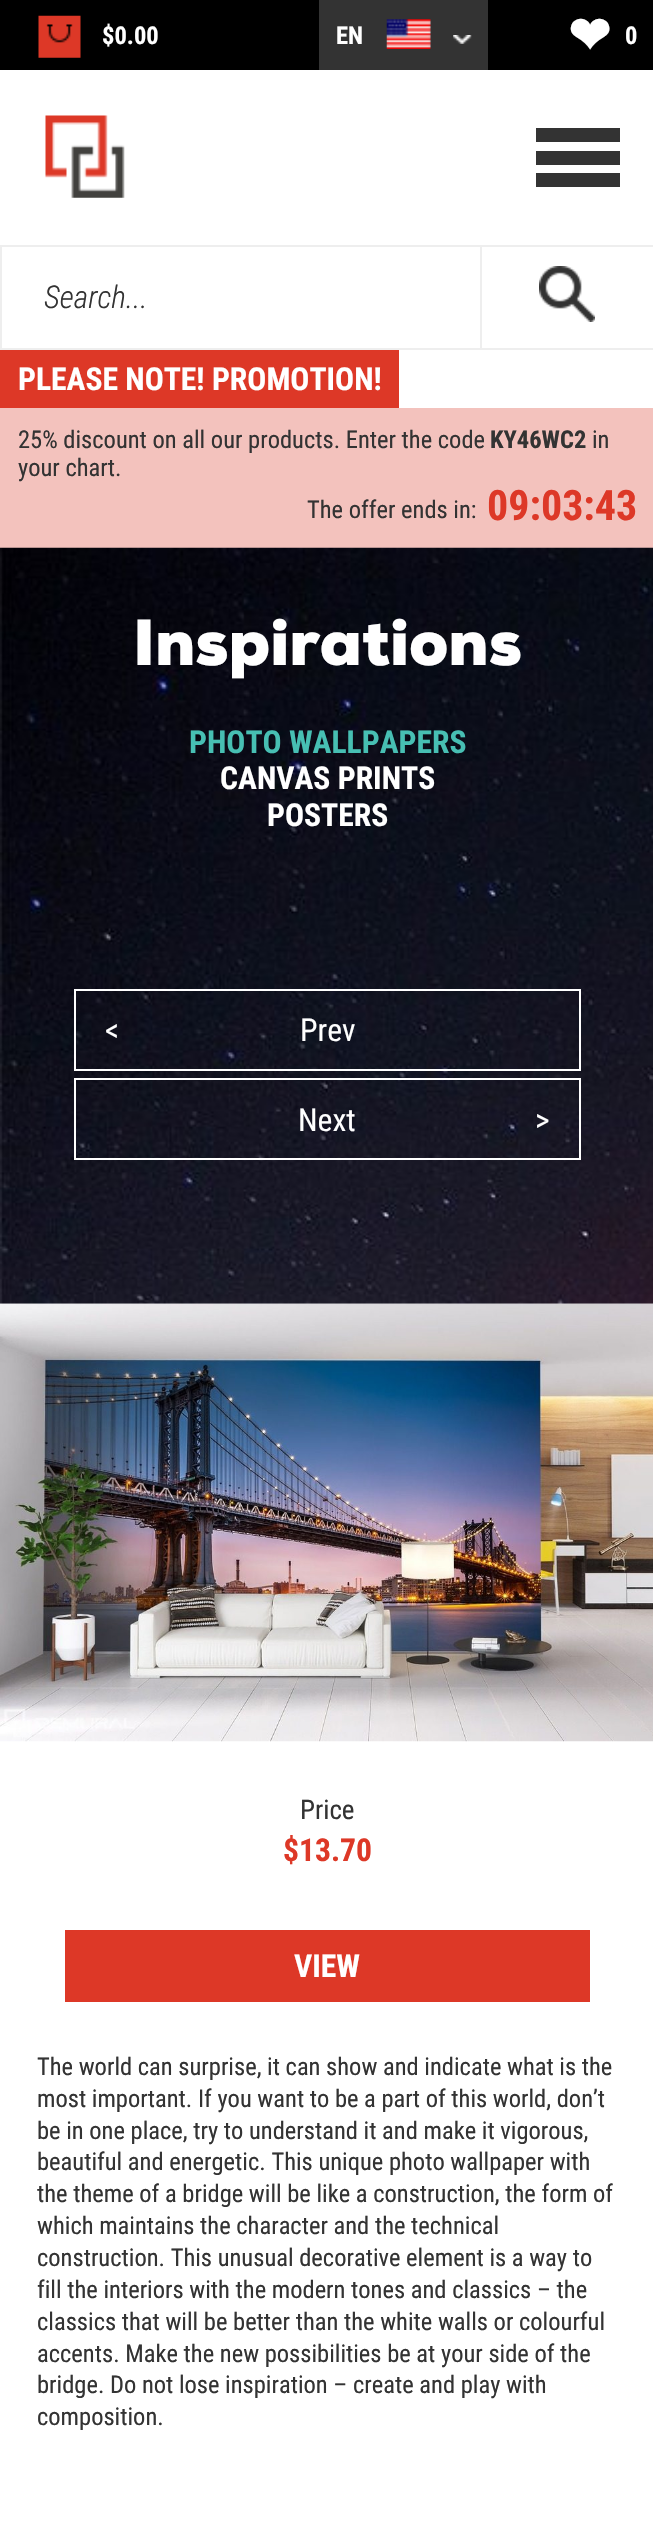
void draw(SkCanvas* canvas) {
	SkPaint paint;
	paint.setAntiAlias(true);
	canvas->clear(0xffffffff);
	paint.setColor(0xff000000);
	canvas->drawRect(SkRect::MakeXYWH(0, 0, 653, 70), paint);
	canvas->drawImageRect(SkImages::DeferredFromEncodedData(SkData::MakeFromFileName("img1.png")), SkRect::MakeXYWH(38, 15, 43, 43), SkSamplingOptions());
	SkFont f1(fontMgr->matchFamilyStyle("Roboto Condensed", SkFontStyle::Bold()), 24.5);
	f1.setSubpixel(true);
	paint.setColor(0xffffffff);
	canvas->drawString("$0.00", 102, 44, f1, paint);
	paint.setColor(0xff333333);
	canvas->drawRect(SkRect::MakeXYWH(319, 0, 169, 70), paint);
	paint.setColor(0xffffffff);
	canvas->drawString("EN", 336, 44, f1, paint);
	canvas->drawImageRect(SkImages::DeferredFromEncodedData(SkData::MakeFromFileName("img2.png")), SkRect::MakeXYWH(386, 19, 45, 30), SkSamplingOptions());
	canvas->drawImageRect(SkImages::DeferredFromEncodedData(SkData::MakeFromFileName("img3.png")), SkRect::MakeXYWH(453, 35, 19, 9), SkSamplingOptions());
	SkFont f2(fontMgr->matchFamilyStyle("DejaVu Sans", SkFontStyle::Bold()), 51);
	f2.setSubpixel(true);
	canvas->drawString("❤", 568, 53, f2, paint);
	canvas->drawString("0", 625, 44, f1, paint);
	canvas->drawImageRect(SkImages::DeferredFromEncodedData(SkData::MakeFromFileName("img4.png")), SkRect::MakeXYWH(45, 115, 80, 83), SkSamplingOptions());
	paint.setColor(0xff333333);
	canvas->drawRect(SkRect::MakeXYWH(536, 128, 84, 14), paint);
	canvas->drawRect(SkRect::MakeXYWH(536, 151, 84, 14), paint);
	canvas->drawRect(SkRect::MakeXYWH(536, 173, 84, 14), paint);
	paint.setColor(0xffeeeeee);
	canvas->drawRect(SkRect::MakeXYWH(0, 245, 480, 2), paint);
	canvas->drawRect(SkRect::MakeXYWH(0, 348, 480, 2), paint);
	canvas->drawRect(SkRect::MakeXYWH(0, 245, 2, 105), paint);
	SkFont f3(fontMgr->matchFamilyStyle("Roboto Condensed", SkFontStyle(300, SkFontStyle::kNormal_Width, SkFontStyle::kItalic_Slant)), 31.5);
	f3.setSubpixel(true);
	paint.setColor(0xff333333);
	canvas->drawString("Search...", 44, 308, f3, paint);
	paint.setStroke(true);
	paint.setStrokeWidth(2);
	paint.setColor(0xffeeeeee);
	canvas->drawRect(SkRect::MakeXYWH(481, 246, 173, 103), paint);
	canvas->drawImageRect(SkImages::DeferredFromEncodedData(SkData::MakeFromFileName("img5.png")), SkRect::MakeXYWH(539, 266, 56, 56), SkSamplingOptions());
	paint.setStroke(false);
	paint.setColor(0xffdd3827);
	canvas->drawRect(SkRect::MakeXYWH(0, 350, 399, 58), paint);
	SkFont f4(fontMgr->matchFamilyStyle("Roboto Condensed", SkFontStyle::Bold()), 31.6);
	f4.setSubpixel(true);
	paint.setColor(0xffffffff);
	canvas->drawString("PLEASE NOTE! PROMOTION!", 18, 390, f4, paint);
	paint.setColor(0xfff3c2bd);
	canvas->drawRect(SkRect::MakeXYWH(0, 408, 653, 140), paint);
	SkFont f5(fontMgr->matchFamilyStyle("Roboto Condensed", SkFontStyle::Normal()), 24.5);
	f5.setSubpixel(true);
	paint.setColor(0xff333333);
	canvas->drawString("25% discount on all our products. Enter the code", 18, 448, f5, paint);
	canvas->drawString("KY46WC2", 490, 448, f1, paint);
	canvas->drawString("in", 592, 448, f5, paint);
	canvas->drawString("your chart.", 18, 476, f5, paint);
	canvas->drawString("The offer ends in:", 307, 518, f5, paint);
	SkFont f6(fontMgr->matchFamilyStyle("Roboto Condensed", SkFontStyle::Bold()), 42);
	f6.setSubpixel(true);
	paint.setColor(0xffdd3827);
	canvas->drawString("09:03:43", 487, 520, f6, paint);
	canvas->drawImageRect(SkImages::DeferredFromEncodedData(SkData::MakeFromFileName("img6.png")), SkRect::MakeXYWH(0, 547, 653, 757), SkSamplingOptions());
	SkFont f7(fontMgr->matchFamilyStyle("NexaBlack", SkFontStyle(900, SkFontStyle::kNormal_Width, SkFontStyle::kUpright_Slant)), 63);
	f7.setSubpixel(true);
	paint.setColor(0xffffffff);
	canvas->drawString("Inspirations", 133, 665, f7, paint);
	paint.setColor(0xff47bfb3);
	canvas->drawString("PHOTO WALLPAPERS", 189, 753, f4, paint);
	paint.setColor(0xffffffff);
	canvas->drawString("CANVAS PRINTS", 220, 789, f4, paint);
	canvas->drawString("POSTERS", 267, 826, f4, paint);
	paint.setStroke(true);
	canvas->drawRect(SkRect::MakeXYWH(75, 990, 505, 80), paint);
	SkFont f8(fontMgr->matchFamilyStyle("Roboto Condensed", SkFontStyle::Normal()), 31.6);
	f8.setSubpixel(true);
	paint.setStroke(false);
	canvas->drawString("<", 105, 1041, f8, paint);
	canvas->drawString("Prev", 300, 1041, f8, paint);
	paint.setStroke(true);
	canvas->drawRect(SkRect::MakeXYWH(75, 1079, 505, 80), paint);
	paint.setStroke(false);
	canvas->drawString("Next", 298, 1131, f8, paint);
	canvas->drawString(">", 535, 1131, f8, paint);
	canvas->drawImageRect(SkImages::DeferredFromEncodedData(SkData::MakeFromFileName("img7.png")), SkRect::MakeXYWH(0, 1303, 653, 439), SkSamplingOptions());
	SkFont f9(fontMgr->matchFamilyStyle("Roboto Condensed", SkFontStyle::Normal()), 27);
	f9.setSubpixel(true);
	paint.setColor(0xff333333);
	canvas->drawString("Price", 300, 1819, f9, paint);
	paint.setColor(0xffdd3827);
	canvas->drawString("$13.70", 283, 1861, f4, paint);
	canvas->drawRect(SkRect::MakeXYWH(65, 1930, 525, 72), paint);
	paint.setColor(0xffffffff);
	canvas->drawString("VIEW", 294, 1977, f4, paint);
	paint.setColor(0xff333333);
	canvas->drawString("The world can surprise, it can show and indicate what is the", 37, 2075, f5, paint);
	canvas->drawString("most important. If you want to be a part of this world, don’t", 37, 2107, f5, paint);
	canvas->drawString("be in one place, try to understand it and make it vigorous,", 37, 2139, f5, paint);
	canvas->drawString("beautiful and energetic. This unique photo wallpaper with", 37, 2170, f5, paint);
	canvas->drawString("the theme of a bridge will be like a construction, the form of", 37, 2202, f5, paint);
	canvas->drawString("which maintains the character and the technical", 37, 2234, f5, paint);
	canvas->drawString("construction. This unusual decorative element is a way to", 37, 2266, f5, paint);
	canvas->drawString("fill the interiors with the modern tones and classics – the", 37, 2298, f5, paint);
	canvas->drawString("classics that will be better than the white walls or colourful", 37, 2330, f5, paint);
	canvas->drawString("accents. Make the new possibilities be at your side of the", 37, 2362, f5, paint);
	canvas->drawString("bridge. Do not lose inspiration – create and play with", 37, 2393, f5, paint);
	canvas->drawString("composition.", 37, 2425, f5, paint);
}
